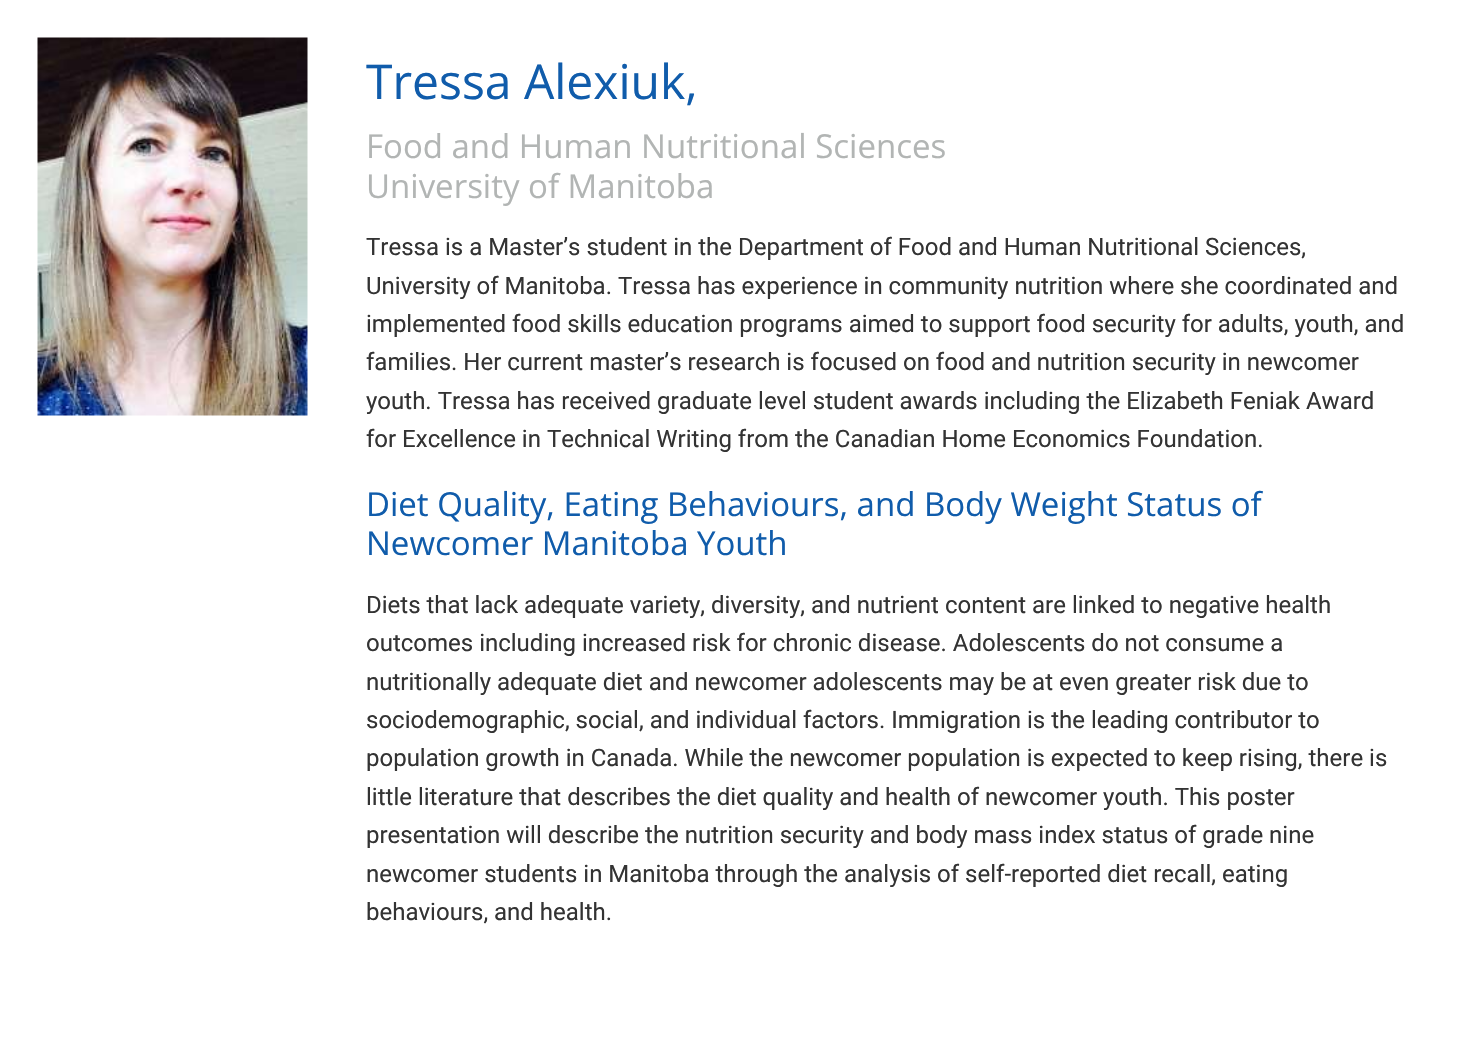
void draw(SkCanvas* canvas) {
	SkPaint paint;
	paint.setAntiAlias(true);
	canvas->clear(0xffffffff);
	canvas->drawImageRect(SkImages::DeferredFromEncodedData(SkData::MakeFromFileName("img1.png")), SkRect::MakeXYWH(37, 37, 271, 379), SkSamplingOptions());
	SkFont f1(fontMgr->matchFamilyStyle("Open Sans", SkFontStyle::Normal()), 48);
	f1.setSubpixel(true);
	paint.setColor(0xff105cab);
	canvas->drawString("Tressa Alexiuk,", 366, 99, f1, paint);
	SkFont f2(fontMgr->matchFamilyStyle("Open Sans", SkFontStyle::Normal()), 33);
	f2.setSubpixel(true);
	paint.setColor(0xffb2b5b4);
	canvas->drawString("Food and Human Nutritional Sciences", 366, 158, f2, paint);
	canvas->drawString("University of Manitoba", 366, 198, f2, paint);
	SkFont f3(fontMgr->matchFamilyStyle("Roboto", SkFontStyle::Normal()), 24);
	f3.setSubpixel(true);
	paint.setColor(0xff333333);
	canvas->drawString("Tressa is a Master’s student in the Department of Food and Human Nutritional Sciences,", 366, 255, f3, paint);
	canvas->drawString("University of Manitoba. Tressa has experience in community nutrition where she coordinated and", 366, 294, f3, paint);
	canvas->drawString("implemented food skills education programs aimed to support food security for adults, youth, and", 366, 332, f3, paint);
	canvas->drawString("families. Her current master’s research is focused on food and nutrition security in newcomer", 366, 370, f3, paint);
	canvas->drawString("youth. Tressa has received graduate level student awards including the Elizabeth Feniak Award", 366, 409, f3, paint);
	canvas->drawString("for Excellence in Technical Writing from the Canadian Home Economics Foundation.", 366, 447, f3, paint);
	paint.setColor(0xff105cab);
	canvas->drawString("Diet Quality, Eating Behaviours, and Body Weight Status of", 366, 516, f2, paint);
	canvas->drawString("Newcomer Manitoba Youth", 366, 555, f2, paint);
	paint.setColor(0xff333333);
	canvas->drawString("Diets that lack adequate variety, diversity, and nutrient content are linked to negative health", 366, 613, f3, paint);
	canvas->drawString("outcomes including increased risk for chronic disease. Adolescents do not consume a", 366, 651, f3, paint);
	canvas->drawString("nutritionally adequate diet and newcomer adolescents may be at even greater risk due to", 366, 690, f3, paint);
	canvas->drawString("sociodemographic, social, and individual factors. Immigration is the leading contributor to", 366, 728, f3, paint);
	canvas->drawString("population growth in Canada. While the newcomer population is expected to keep rising, there is", 366, 766, f3, paint);
	canvas->drawString("little literature that describes the diet quality and health of newcomer youth. This poster", 366, 805, f3, paint);
	canvas->drawString("presentation will describe the nutrition security and body mass index status of grade nine", 366, 843, f3, paint);
	canvas->drawString("newcomer students in Manitoba through the analysis of self-reported diet recall, eating", 366, 882, f3, paint);
	canvas->drawString("behaviours, and health.", 366, 920, f3, paint);
}
